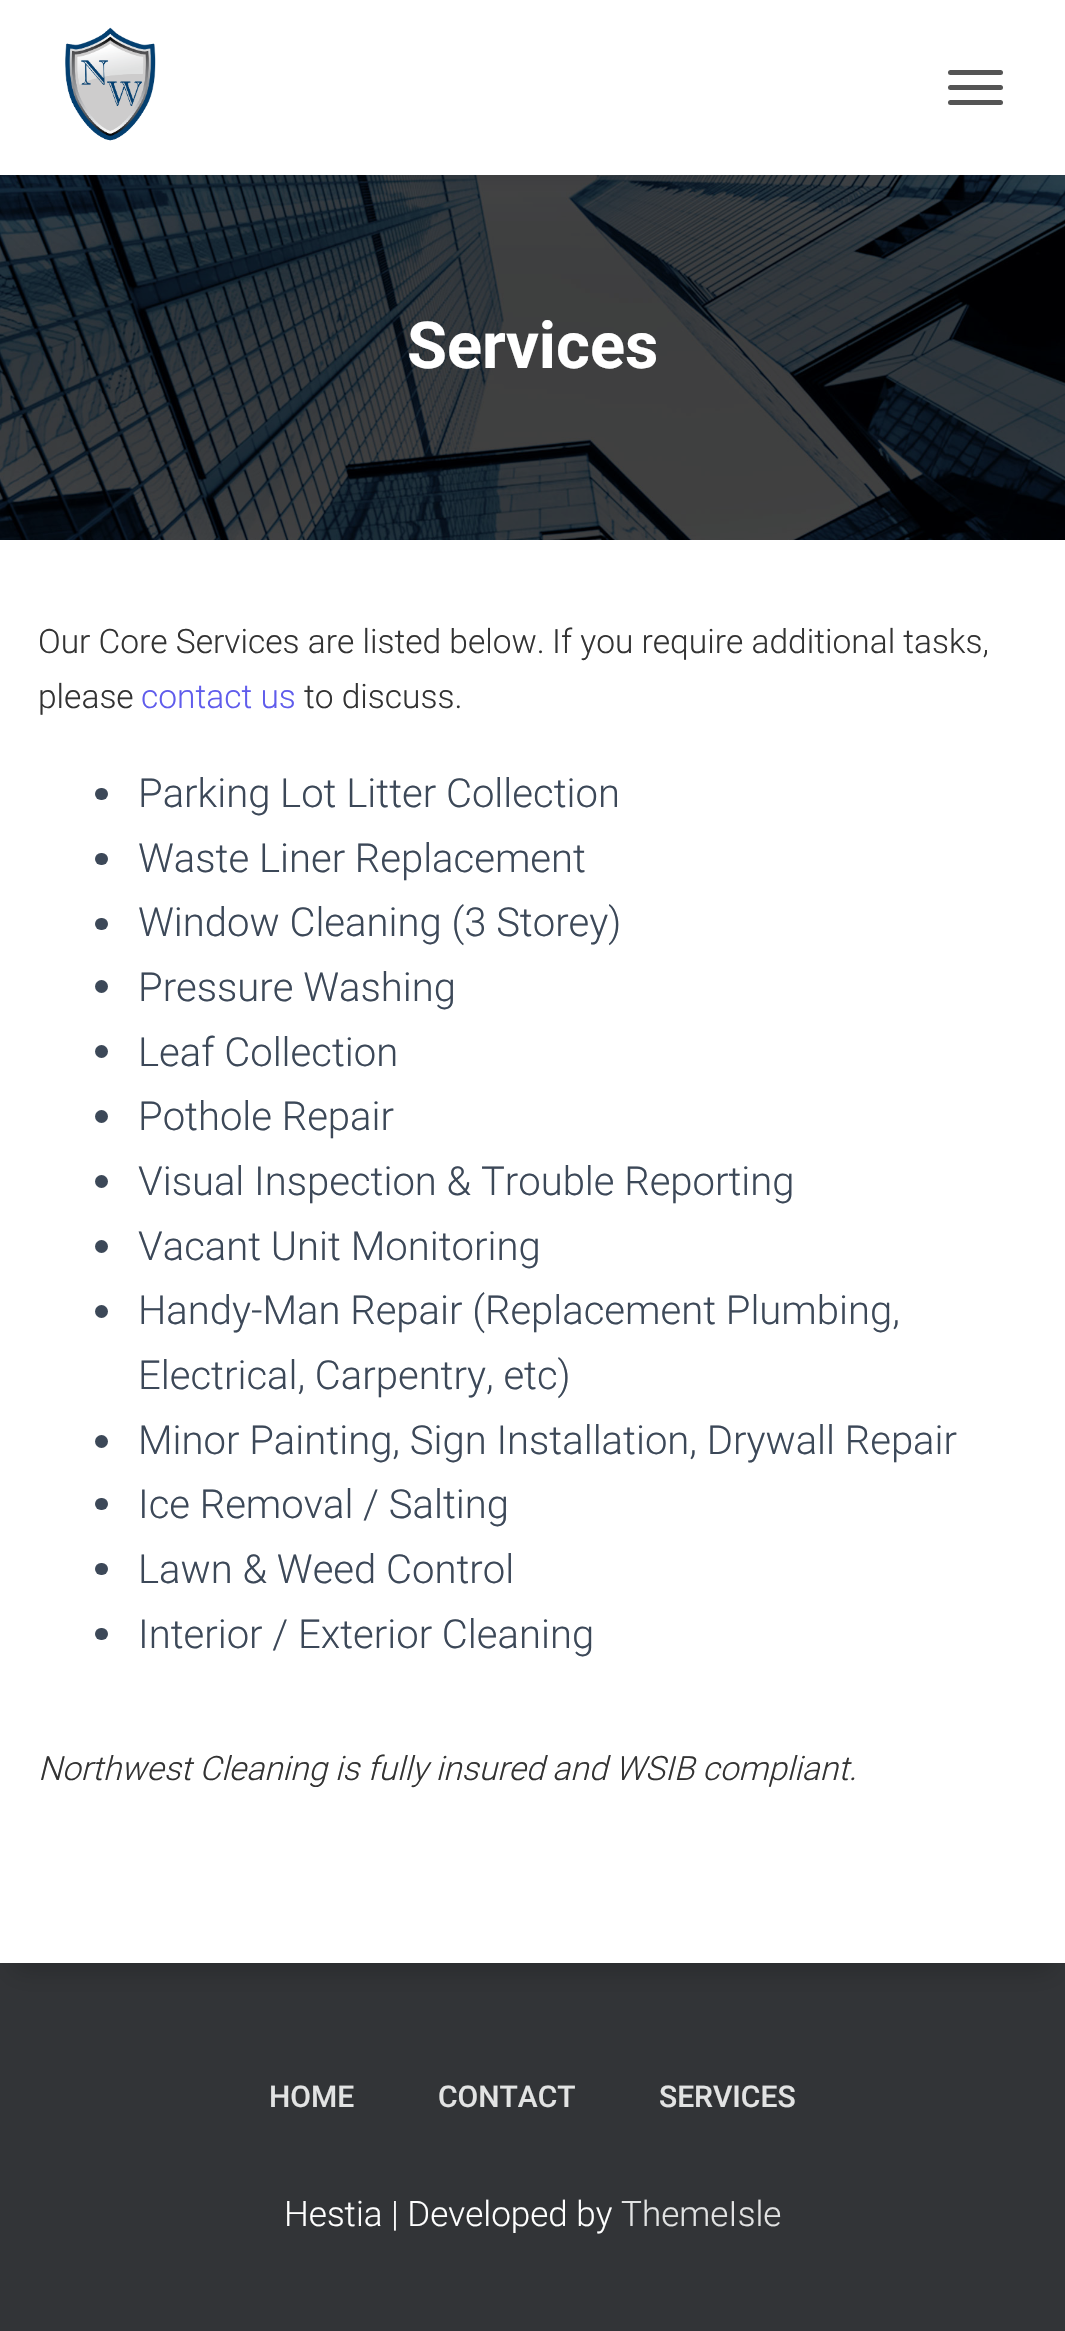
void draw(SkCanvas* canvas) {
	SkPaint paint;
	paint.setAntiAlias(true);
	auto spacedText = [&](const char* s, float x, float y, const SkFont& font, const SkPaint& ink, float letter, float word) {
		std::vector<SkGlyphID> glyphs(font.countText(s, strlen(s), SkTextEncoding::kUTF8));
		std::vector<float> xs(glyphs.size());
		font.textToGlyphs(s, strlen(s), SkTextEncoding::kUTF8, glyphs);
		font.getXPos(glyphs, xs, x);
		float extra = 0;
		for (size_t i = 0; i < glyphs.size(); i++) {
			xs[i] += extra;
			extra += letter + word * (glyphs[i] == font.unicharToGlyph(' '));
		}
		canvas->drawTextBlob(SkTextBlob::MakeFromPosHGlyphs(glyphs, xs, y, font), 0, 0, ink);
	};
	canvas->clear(0xff323437);
	canvas->drawImageRect(SkImages::DeferredFromEncodedData(SkData::MakeFromFileName("img2.png")), SkRect::MakeXYWH(0, 175, 1065, 365), SkSamplingOptions());
	paint.setColor(0x6b000000);
	paint.setMaskFilter(SkMaskFilter::MakeBlur(kNormal_SkBlurStyle, 12.5));
	canvas->drawRect(SkRect::MakeXYWH(15, 18, 1035, 145), paint);
	paint.setMaskFilter(nullptr);
	paint.setColor(0xffffffff);
	canvas->drawRect(SkRect::MakeXYWH(0, 0, 1065, 175), paint);
	canvas->drawImageRect(SkImages::DeferredFromEncodedData(SkData::MakeFromFileName("img1.png")), SkRect::MakeXYWH(65, 27, 91, 114), SkSamplingOptions());
	paint.setColor(0xff555555);
	canvas->drawRoundRect(SkRect::MakeXYWH(948, 70, 55, 5), 2.5, 2.5, paint);
	canvas->drawRoundRect(SkRect::MakeXYWH(948, 85, 55, 5), 2.5, 2.5, paint);
	canvas->drawRoundRect(SkRect::MakeXYWH(948, 100, 55, 5), 2.5, 2.5, paint);
	SkFont f1(fontMgr->matchFamilyStyle("Roboto", SkFontStyle::Bold()), 65);
	f1.setSubpixel(true);
	paint.setColor(0xffffffff);
	canvas->drawString("Services", 407, 368, f1, paint);
	paint.setColor(0x33000000);
	paint.setMaskFilter(SkMaskFilter::MakeBlur(kNormal_SkBlurStyle, 12.5));
	canvas->drawRect(SkRect::MakeXYWH(13, 573, 1040, 1397), paint);
	paint.setMaskFilter(nullptr);
	paint.setColor(0xffffffff);
	canvas->drawRect(SkRect::MakeXYWH(0, 540, 1065, 1423), paint);
	SkFont f2(fontMgr->matchFamilyStyle("Roboto", SkFontStyle(300, SkFontStyle::kNormal_Width, SkFontStyle::kUpright_Slant)), 33.5);
	f2.setSubpixel(true);
	paint.setColor(0xff333333);
	canvas->drawString("Our Core Services are listed below.", 38, 653, f2, paint);
	canvas->drawString("If you require additional tasks,", 552, 653, f2, paint);
	canvas->drawString("please", 38, 708, f2, paint);
	paint.setColor(0xff5f5cec);
	canvas->drawString("contact us", 141, 708, f2, paint);
	paint.setColor(0xff333333);
	canvas->drawString("to discuss.", 304, 708, f2, paint);
	paint.setColor(0xff3c4858);
	canvas->drawRoundRect(SkRect::MakeXYWH(95, 788, 13, 12), 6, 6, paint);
	SkFont f3(fontMgr->matchFamilyStyle("Roboto", SkFontStyle(300, SkFontStyle::kNormal_Width, SkFontStyle::kUpright_Slant)), 40);
	f3.setSubpixel(true);
	canvas->drawString("Parking Lot Litter Collection", 138, 807, f3, paint);
	canvas->drawRoundRect(SkRect::MakeXYWH(95, 853, 13, 12), 6, 6, paint);
	canvas->drawString("Waste Liner Replacement", 138, 872, f3, paint);
	canvas->drawRoundRect(SkRect::MakeXYWH(95, 918, 13, 12), 6, 6, paint);
	canvas->drawString("Window Cleaning (3 Storey)", 138, 936, f3, paint);
	canvas->drawCircle(101.5, 986.5, 6.5, paint);
	canvas->drawString("Pressure Washing", 138, 1001, f3, paint);
	canvas->drawCircle(101.5, 1051.5, 6.5, paint);
	canvas->drawString("Leaf Collection", 138, 1066, f3, paint);
	canvas->drawCircle(101.5, 1116.5, 6.5, paint);
	canvas->drawString("Pothole Repair", 138, 1130, f3, paint);
	canvas->drawCircle(101.5, 1181.5, 6.5, paint);
	canvas->drawString("Visual Inspection & Trouble Reporting", 138, 1195, f3, paint);
	canvas->drawCircle(101.5, 1246.5, 6.5, paint);
	canvas->drawString("Vacant Unit Monitoring", 138, 1260, f3, paint);
	canvas->drawCircle(101.5, 1311.5, 6.5, paint);
	canvas->drawString("Handy-Man Repair (Replacement Plumbing,", 138, 1324, f3, paint);
	canvas->drawString("Electrical, Carpentry, etc)", 138, 1389, f3, paint);
	canvas->drawCircle(101.5, 1441.5, 6.5, paint);
	canvas->drawString("Minor Painting, Sign Installation, Drywall Repair", 138, 1454, f3, paint);
	canvas->drawRoundRect(SkRect::MakeXYWH(95, 1498, 13, 12), 6, 6, paint);
	canvas->drawString("Ice Removal / Salting", 138, 1518, f3, paint);
	canvas->drawRoundRect(SkRect::MakeXYWH(95, 1563, 13, 12), 6, 6, paint);
	canvas->drawString("Lawn & Weed Control", 138, 1583, f3, paint);
	canvas->drawRoundRect(SkRect::MakeXYWH(95, 1628, 13, 12), 6, 6, paint);
	canvas->drawString("Interior / Exterior Cleaning", 138, 1648, f3, paint);
	SkFont f4(fontMgr->matchFamilyStyle("Roboto", SkFontStyle(300, SkFontStyle::kNormal_Width, SkFontStyle::kItalic_Slant)), 33.5);
	f4.setSubpixel(true);
	paint.setColor(0xff333333);
	spacedText("Northwest Cleaning is fully insured and WSIB compliant.", 38, 1780, f4, paint, 0, -0.25);
	SkFont f5(fontMgr->matchFamilyStyle("Roboto", SkFontStyle(500, SkFontStyle::kNormal_Width, SkFontStyle::kUpright_Slant)), 30);
	f5.setSubpixel(true);
	paint.setColor(0xffe2e3e3);
	canvas->drawString("HOME", 269, 2107, f5, paint);
	canvas->drawString("CONTACT", 438, 2107, f5, paint);
	canvas->drawString("SERVICES", 659, 2107, f5, paint);
	SkFont f6(fontMgr->matchFamilyStyle("Roboto", SkFontStyle(300, SkFontStyle::kNormal_Width, SkFontStyle::kUpright_Slant)), 35);
	f6.setSubpixel(true);
	paint.setColor(0xffffffff);
	canvas->drawString("Hestia | Developed by", 284, 2226, f6, paint);
	paint.setColor(0xffe2e3e3);
	canvas->drawString("ThemeIsle", 621, 2226, f6, paint);
}
